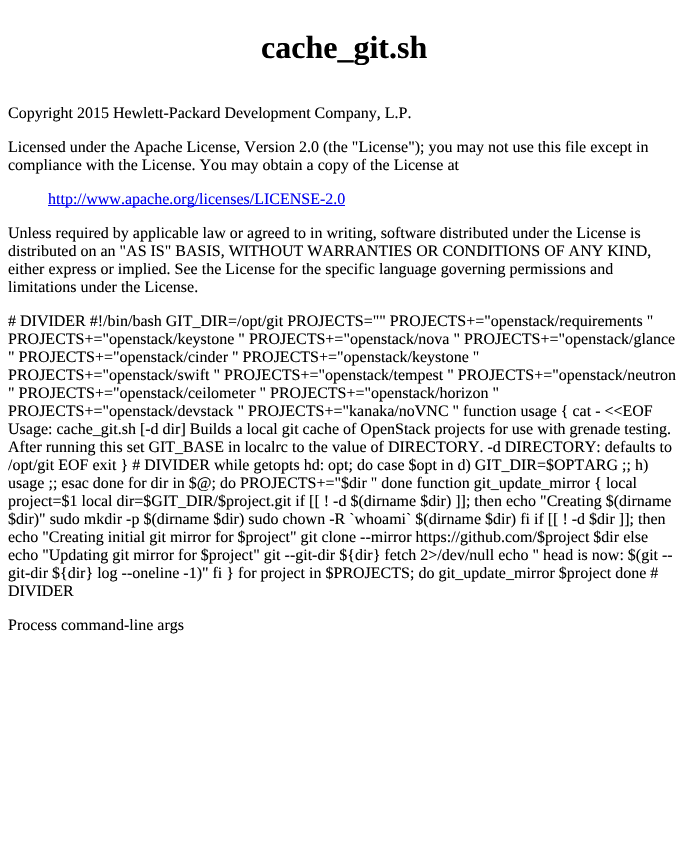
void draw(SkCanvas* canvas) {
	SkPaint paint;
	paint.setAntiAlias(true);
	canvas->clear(0xffffffff);
	SkFont f1(fontMgr->matchFamilyStyle("Liberation Serif", SkFontStyle::Bold()), 32);
	f1.setSubpixel(true);
	paint.setColor(0xff000000);
	canvas->drawString("cache_git.sh", 261, 58, f1, paint);
	SkFont f2(fontMgr->matchFamilyStyle("Liberation Serif", SkFontStyle::Normal()), 16);
	f2.setSubpixel(true);
	canvas->drawString("Copyright 2015 Hewlett-Packard Development Company, L.P.", 8, 118, f2, paint);
	canvas->drawString("Licensed under the Apache License, Version 2.0 (the \"License\"); you may not use this file except in", 8, 152, f2, paint);
	canvas->drawString("compliance with the License. You may obtain a copy of the License at", 8, 170, f2, paint);
	paint.setColor(0xff0000ee);
	canvas->drawRect(SkRect::MakeXYWH(48, 205, 297, 1), paint);
	canvas->drawString("http://www.apache.org/licenses/LICENSE-2.0", 48, 204, f2, paint);
	paint.setColor(0xff000000);
	canvas->drawString("Unless required by applicable law or agreed to in writing, software distributed under the License is", 8, 238, f2, paint);
	canvas->drawString("distributed on an \"AS IS\" BASIS, WITHOUT WARRANTIES OR CONDITIONS OF ANY KIND,", 8, 256, f2, paint);
	canvas->drawString("either express or implied. See the License for the specific language governing permissions and", 8, 274, f2, paint);
	canvas->drawString("limitations under the License.", 8, 292, f2, paint);
	canvas->drawString("# DIVIDER #!/bin/bash GIT_DIR=/opt/git PROJECTS=\"\" PROJECTS+=\"openstack/requirements \"", 8, 326, f2, paint);
	canvas->drawString("PROJECTS+=\"openstack/keystone \" PROJECTS+=\"openstack/nova \" PROJECTS+=\"openstack/glance", 8, 344, f2, paint);
	canvas->drawString("\" PROJECTS+=\"openstack/cinder \" PROJECTS+=\"openstack/keystone \"", 8, 362, f2, paint);
	canvas->drawString("PROJECTS+=\"openstack/swift \" PROJECTS+=\"openstack/tempest \" PROJECTS+=\"openstack/neutron", 8, 380, f2, paint);
	canvas->drawString("\" PROJECTS+=\"openstack/ceilometer \" PROJECTS+=\"openstack/horizon \"", 8, 398, f2, paint);
	canvas->drawString("PROJECTS+=\"openstack/devstack \" PROJECTS+=\"kanaka/noVNC \" function usage { cat - <<EOF", 8, 416, f2, paint);
	canvas->drawString("Usage: cache_git.sh [-d dir] Builds a local git cache of OpenStack projects for use with grenade testing.", 8, 434, f2, paint);
	canvas->drawString("After running this set GIT_BASE in localrc to the value of DIRECTORY. -d DIRECTORY: defaults to", 8, 452, f2, paint);
	canvas->drawString("/opt/git EOF exit } # DIVIDER while getopts hd: opt; do case $opt in d) GIT_DIR=$OPTARG ;; h)", 8, 470, f2, paint);
	canvas->drawString("usage ;; esac done for dir in $@; do PROJECTS+=\"$dir \" done function git_update_mirror { local", 8, 488, f2, paint);
	canvas->drawString("project=$1 local dir=$GIT_DIR/$project.git if [[ ! -d $(dirname $dir) ]]; then echo \"Creating $(dirname", 8, 506, f2, paint);
	canvas->drawString("$dir)\" sudo mkdir -p $(dirname $dir) sudo chown -R `whoami` $(dirname $dir) fi if [[ ! -d $dir ]]; then", 8, 524, f2, paint);
	canvas->drawString("echo \"Creating initial git mirror for $project\" git clone --mirror https://github.com/$project $dir else", 8, 542, f2, paint);
	canvas->drawString("echo \"Updating git mirror for $project\" git --git-dir ${dir} fetch 2>/dev/null echo \" head is now: $(git --", 8, 560, f2, paint);
	canvas->drawString("git-dir ${dir} log --oneline -1)\" fi } for project in $PROJECTS; do git_update_mirror $project done #", 8, 578, f2, paint);
	canvas->drawString("DIVIDER", 8, 596, f2, paint);
	canvas->drawString("Process command-line args", 8, 630, f2, paint);
}
